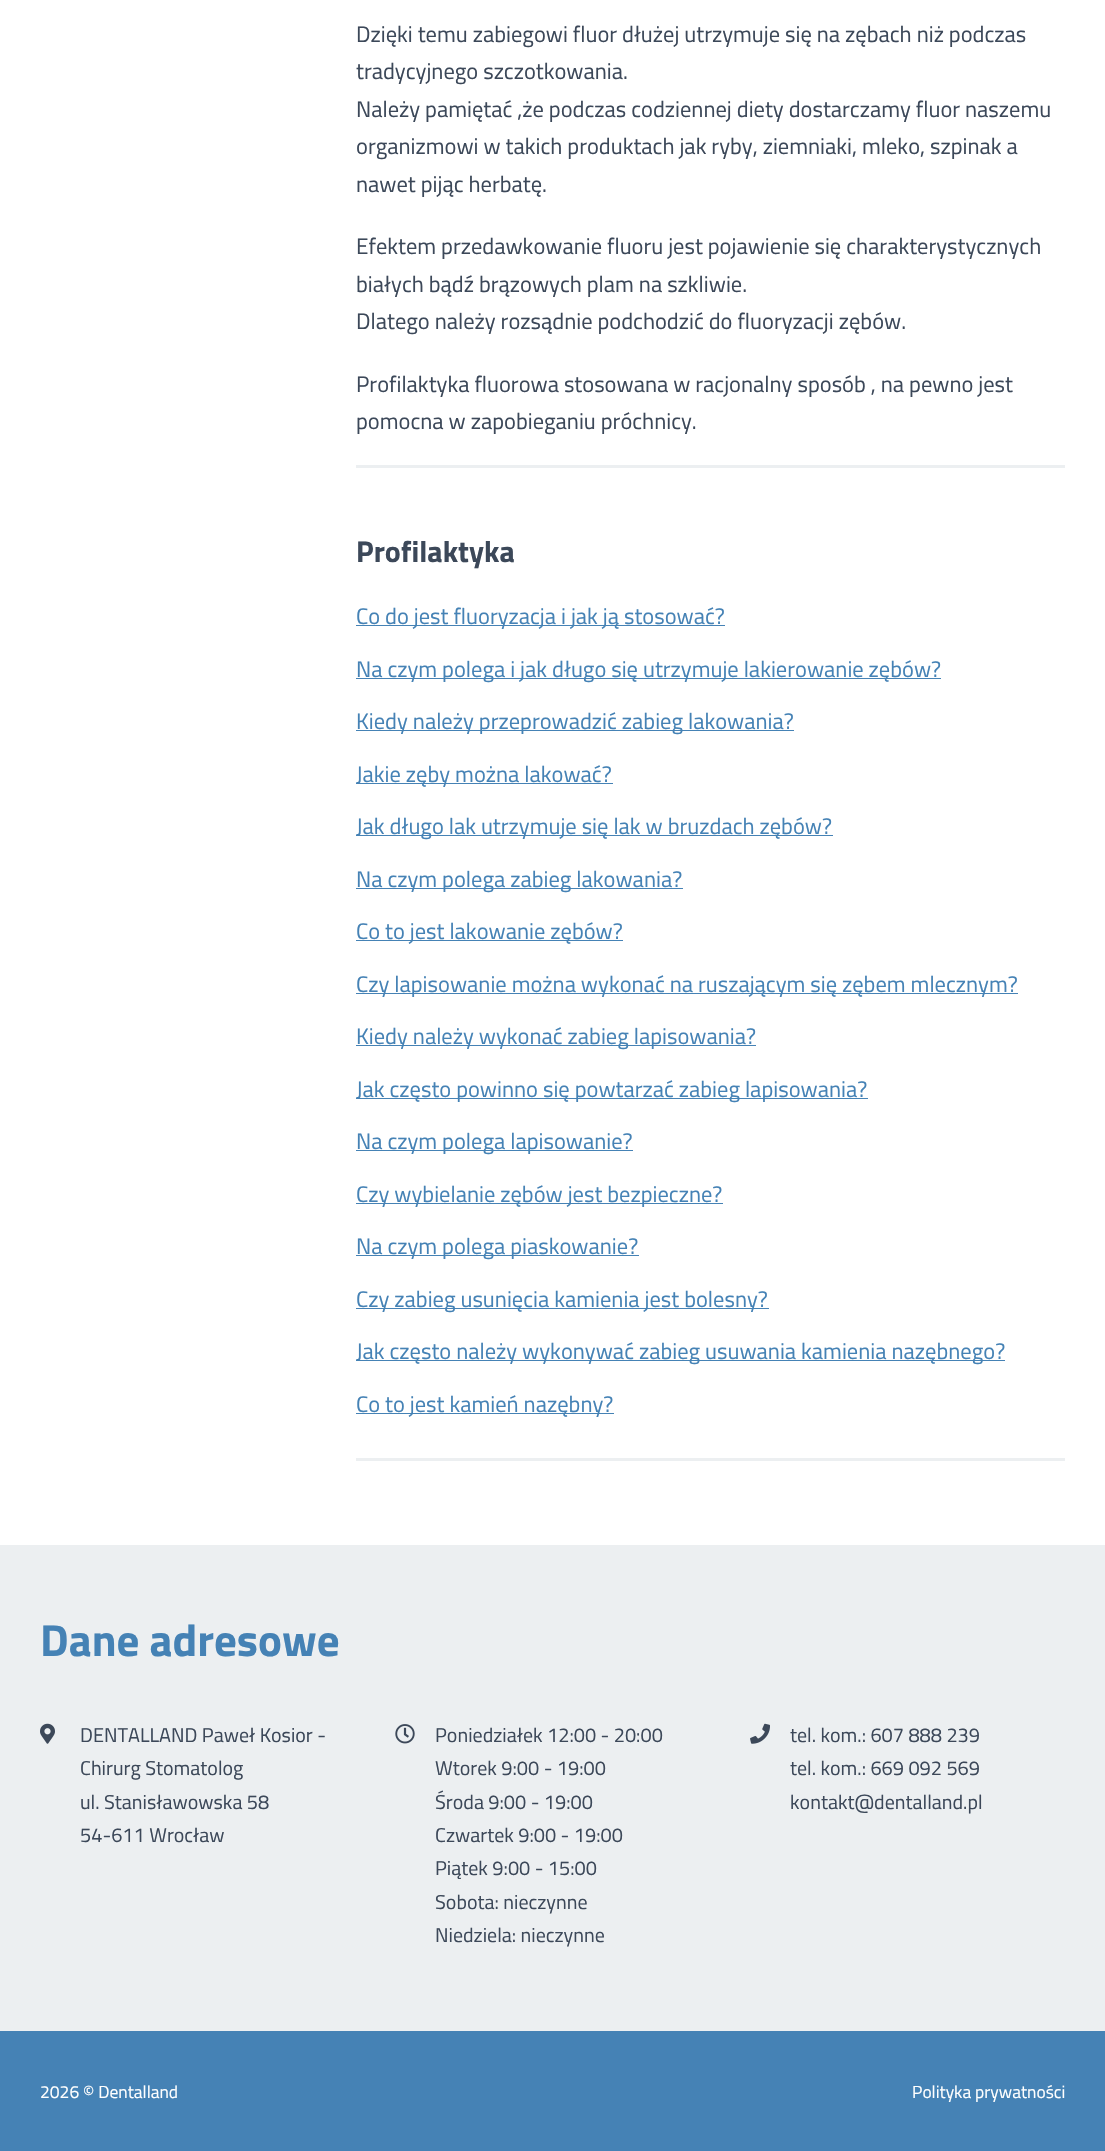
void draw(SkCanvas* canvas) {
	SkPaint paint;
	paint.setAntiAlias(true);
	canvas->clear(0xff4582b5);
	paint.setColor(0xffffffff);
	canvas->drawRect(SkRect::MakeXYWH(0, 0, 1105, 1545), paint);
	SkFont f1(fontMgr->matchFamilyStyle("Titillium Web", SkFontStyle::Normal()), 22.5);
	f1.setSubpixel(true);
	paint.setColor(0xff3c4859);
	canvas->drawString("Dzięki temu zabiegowi fluor dłużej utrzymuje się na zębach niż podczas", 356, 42, f1, paint);
	canvas->drawString("tradycyjnego szczotkowania.", 356, 79, f1, paint);
	canvas->drawString("Należy pamiętać ,że podczas codziennej diety dostarczamy fluor naszemu", 356, 117, f1, paint);
	canvas->drawString("organizmowi w takich produktach jak ryby, ziemniaki, mleko, szpinak a", 356, 154, f1, paint);
	canvas->drawString("nawet pijąc herbatę.", 356, 192, f1, paint);
	canvas->drawString("Efektem przedawkowanie fluoru jest pojawienie się charakterystycznych", 356, 254, f1, paint);
	canvas->drawString("białych bądź brązowych plam na szkliwie.", 356, 292, f1, paint);
	canvas->drawString("Dlatego należy rozsądnie podchodzić do fluoryzacji zębów.", 356, 329, f1, paint);
	canvas->drawString("Profilaktyka fluorowa stosowana w racjonalny sposób , na pewno jest", 356, 392, f1, paint);
	canvas->drawString("pomocna w zapobieganiu próchnicy.", 356, 429, f1, paint);
	paint.setColor(0xffeceff1);
	canvas->drawRect(SkRect::MakeXYWH(356, 465, 709, 3), paint);
	SkFont f2(fontMgr->matchFamilyStyle("Titillium Web", SkFontStyle::Bold()), 30);
	f2.setSubpixel(true);
	paint.setColor(0xff3c4859);
	canvas->drawString("Profilaktyka", 356, 562, f2, paint);
	paint.setColor(0xffeceff1);
	canvas->drawRect(SkRect::MakeXYWH(356, 1458, 709, 3), paint);
	paint.setColor(0xff4582b5);
	canvas->drawRect(SkRect::MakeXYWH(356, 625, 369, 1), paint);
	canvas->drawString("Co do jest fluoryzacja i jak ją stosować?", 356, 624, f1, paint);
	canvas->drawRect(SkRect::MakeXYWH(356, 678, 585, 1), paint);
	canvas->drawString("Na czym polega i jak długo się utrzymuje lakierowanie zębów?", 356, 677, f1, paint);
	canvas->drawRect(SkRect::MakeXYWH(356, 730, 438, 1), paint);
	canvas->drawString("Kiedy należy przeprowadzić zabieg lakowania?", 356, 729, f1, paint);
	canvas->drawRect(SkRect::MakeXYWH(356, 783, 257, 1), paint);
	canvas->drawString("Jakie zęby można lakować?", 356, 782, f1, paint);
	canvas->drawRect(SkRect::MakeXYWH(356, 835, 477, 1), paint);
	canvas->drawString("Jak długo lak utrzymuje się lak w bruzdach zębów?", 356, 834, f1, paint);
	canvas->drawRect(SkRect::MakeXYWH(356, 888, 327, 1), paint);
	canvas->drawString("Na czym polega zabieg lakowania?", 356, 887, f1, paint);
	canvas->drawRect(SkRect::MakeXYWH(356, 940, 267, 1), paint);
	canvas->drawString("Co to jest lakowanie zębów?", 356, 939, f1, paint);
	canvas->drawRect(SkRect::MakeXYWH(356, 993, 662, 1), paint);
	canvas->drawString("Czy lapisowanie można wykonać na ruszającym się zębem mlecznym?", 356, 992, f1, paint);
	canvas->drawRect(SkRect::MakeXYWH(356, 1045, 400, 1), paint);
	canvas->drawString("Kiedy należy wykonać zabieg lapisowania?", 356, 1044, f1, paint);
	canvas->drawRect(SkRect::MakeXYWH(356, 1098, 512, 1), paint);
	canvas->drawString("Jak często powinno się powtarzać zabieg lapisowania?", 356, 1097, f1, paint);
	canvas->drawRect(SkRect::MakeXYWH(356, 1150, 277, 1), paint);
	canvas->drawString("Na czym polega lapisowanie?", 356, 1149, f1, paint);
	canvas->drawRect(SkRect::MakeXYWH(356, 1203, 367, 1), paint);
	canvas->drawString("Czy wybielanie zębów jest bezpieczne?", 356, 1202, f1, paint);
	canvas->drawRect(SkRect::MakeXYWH(356, 1255, 283, 1), paint);
	canvas->drawString("Na czym polega piaskowanie?", 356, 1254, f1, paint);
	canvas->drawRect(SkRect::MakeXYWH(356, 1308, 413, 1), paint);
	canvas->drawString("Czy zabieg usunięcia kamienia jest bolesny?", 356, 1307, f1, paint);
	canvas->drawRect(SkRect::MakeXYWH(356, 1360, 649, 1), paint);
	canvas->drawString("Jak często należy wykonywać zabieg usuwania kamienia nazębnego?", 356, 1359, f1, paint);
	canvas->drawRect(SkRect::MakeXYWH(356, 1413, 258, 1), paint);
	canvas->drawString("Co to jest kamień nazębny?", 356, 1412, f1, paint);
	paint.setColor(0xffeceff1);
	canvas->drawRect(SkRect::MakeXYWH(0, 1545, 1105, 486), paint);
	SkFont f3(fontMgr->matchFamilyStyle("Titillium Web", SkFontStyle::Bold()), 45);
	f3.setSubpixel(true);
	paint.setColor(0xff4582b5);
	canvas->drawString("Dane adresowe", 40, 1656, f3, paint);
	canvas->drawImageRect(SkImages::DeferredFromEncodedData(SkData::MakeFromFileName("img1.png")), SkRect::MakeXYWH(40, 1723, 15, 21), SkSamplingOptions());
	SkFont f4(fontMgr->matchFamilyStyle("Titillium Web", SkFontStyle::Normal()), 20);
	f4.setSubpixel(true);
	paint.setColor(0xff3c4859);
	canvas->drawString("DENTALLAND Paweł Kosior -", 80, 1742, f4, paint);
	canvas->drawString("Chirurg Stomatolog", 80, 1775, f4, paint);
	canvas->drawString("ul. Stanisławowska 58", 80, 1809, f4, paint);
	canvas->drawString("54-611 Wrocław", 80, 1842, f4, paint);
	canvas->drawImageRect(SkImages::DeferredFromEncodedData(SkData::MakeFromFileName("img2.png")), SkRect::MakeXYWH(395, 1724, 20, 20), SkSamplingOptions());
	canvas->drawString("Poniedziałek 12:00 - 20:00", 435, 1742, f4, paint);
	canvas->drawString("Wtorek 9:00 - 19:00", 435, 1775, f4, paint);
	canvas->drawString("Środa 9:00 - 19:00", 435, 1809, f4, paint);
	canvas->drawString("Czwartek 9:00 - 19:00", 435, 1842, f4, paint);
	canvas->drawString("Piątek 9:00 - 15:00", 435, 1875, f4, paint);
	canvas->drawString("Sobota: nieczynne", 435, 1909, f4, paint);
	canvas->drawString("Niedziela: nieczynne", 435, 1942, f4, paint);
	canvas->drawImageRect(SkImages::DeferredFromEncodedData(SkData::MakeFromFileName("img3.png")), SkRect::MakeXYWH(750, 1723, 20, 21), SkSamplingOptions());
	canvas->drawString("tel. kom.: 607 888 239", 790, 1742, f4, paint);
	canvas->drawString("tel. kom.: 669 092 569", 790, 1775, f4, paint);
	canvas->drawString("kontakt@dentalland.pl", 790, 1809, f4, paint);
	SkFont f5(fontMgr->matchFamilyStyle("Titillium Web", SkFontStyle::Normal()), 17.5);
	f5.setSubpixel(true);
	paint.setColor(0xffffffff);
	canvas->drawString("2026 © Dentalland", 40, 2098, f5, paint);
	canvas->drawString("Polityka prywatności", 912, 2098, f5, paint);
}
